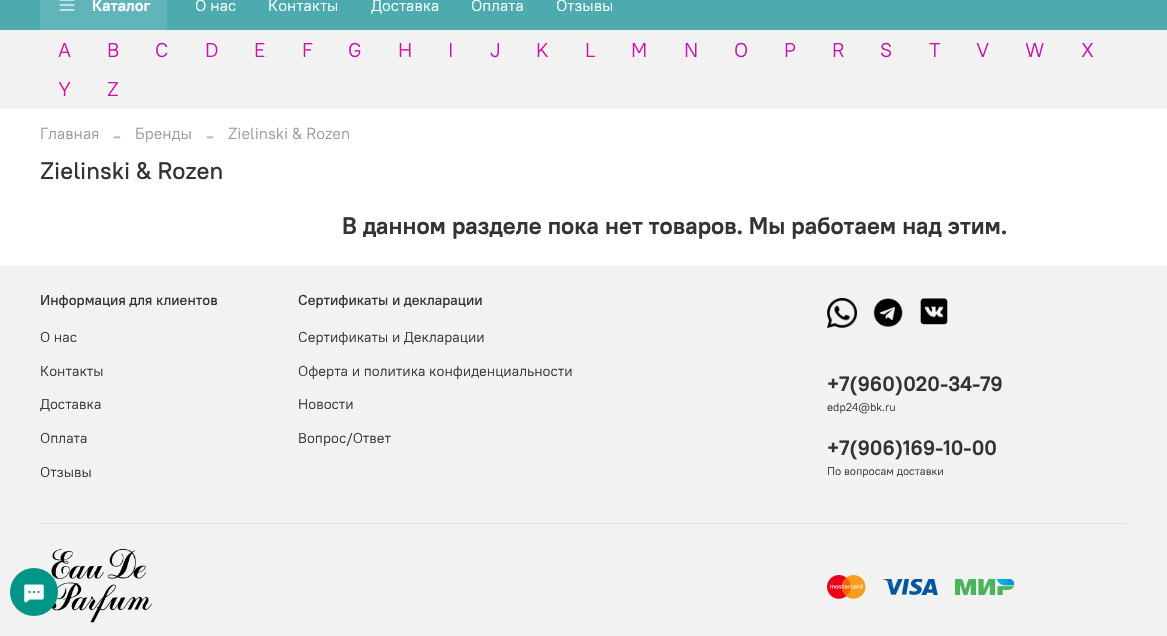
void draw(SkCanvas* canvas) {
	SkPaint paint;
	paint.setAntiAlias(true);
	canvas->clear(0xffffffff);
	paint.setColor(0xff4dabb0);
	canvas->drawRect(SkRect::MakeXYWH(0, 0, 1167, 30), paint);
	paint.setColor(0xff5fb5b9);
	canvas->drawRect(SkRect::MakeXYWH(40, 0, 127, 30), paint);
	canvas->drawImageRect(SkImages::DeferredFromEncodedData(SkData::MakeFromFileName("img1.png")), SkRect::MakeXYWH(59, 0, 16, 11), SkSamplingOptions());
	SkFont f1(fontMgr->matchFamilyStyle("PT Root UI", SkFontStyle::Bold()), 16);
	f1.setSubpixel(true);
	paint.setColor(0xffffffff);
	canvas->drawString("Каталог", 92, 11, f1, paint);
	SkFont f2(fontMgr->matchFamilyStyle("PT Root UI", SkFontStyle::Normal()), 16);
	f2.setSubpixel(true);
	canvas->drawString("О нас", 195, 11, f2, paint);
	canvas->drawString("Контакты", 268, 11, f2, paint);
	canvas->drawString("Доставка", 371, 11, f2, paint);
	canvas->drawString("Оплата", 471, 11, f2, paint);
	canvas->drawString("Отзывы", 556, 11, f2, paint);
	paint.setColor(0xfff2f2f2);
	canvas->drawRect(SkRect::MakeXYWH(0, 30, 1167, 79), paint);
	SkFont f3(fontMgr->matchFamilyStyle("PT Root UI", SkFontStyle::Normal()), 20);
	f3.setSubpixel(true);
	paint.setColor(0xffcb11ab);
	canvas->drawString("A", 58, 57, f3, paint);
	canvas->drawString("B", 107, 57, f3, paint);
	canvas->drawString("C", 155, 57, f3, paint);
	canvas->drawString("D", 205, 57, f3, paint);
	canvas->drawString("E", 254, 57, f3, paint);
	canvas->drawString("F", 302, 57, f3, paint);
	canvas->drawString("G", 348, 57, f3, paint);
	canvas->drawString("H", 398, 57, f3, paint);
	canvas->drawString("I", 448, 57, f3, paint);
	canvas->drawString("J", 490, 57, f3, paint);
	canvas->drawString("K", 536, 57, f3, paint);
	canvas->drawString("L", 585, 57, f3, paint);
	canvas->drawString("M", 631, 57, f3, paint);
	canvas->drawString("N", 684, 57, f3, paint);
	canvas->drawString("O", 734, 57, f3, paint);
	canvas->drawString("P", 784, 57, f3, paint);
	canvas->drawString("R", 832, 57, f3, paint);
	canvas->drawString("S", 880, 57, f3, paint);
	canvas->drawString("T", 929, 57, f3, paint);
	canvas->drawString("V", 976, 57, f3, paint);
	canvas->drawString("W", 1025, 57, f3, paint);
	canvas->drawString("X", 1081, 57, f3, paint);
	canvas->drawString("Y", 58, 96, f3, paint);
	canvas->drawString("Z", 107, 96, f3, paint);
	paint.setColor(0xff999999);
	canvas->drawString("Главная", 40, 139, f2, paint);
	SkFont f4(fontMgr->matchFamilyStyle("Liberation Serif", SkFontStyle::Normal()), 24);
	f4.setSubpixel(true);
	paint.setColor(0xffb8b8b8);
	canvas->drawString("-", 113, 143, f4, paint);
	paint.setColor(0xff999999);
	canvas->drawString("Бренды", 135, 139, f2, paint);
	paint.setColor(0xffb8b8b8);
	canvas->drawString("-", 206, 143, f4, paint);
	paint.setColor(0xff999999);
	canvas->drawString("Zielinski & Rozen", 228, 139, f2, paint);
	SkFont f5(fontMgr->matchFamilyStyle("PT Root UI", SkFontStyle(500, SkFontStyle::kNormal_Width, SkFontStyle::kUpright_Slant)), 24);
	f5.setSubpixel(true);
	paint.setColor(0xff333333);
	canvas->drawString("Zielinski & Rozen", 40, 179, f5, paint);
	SkFont f6(fontMgr->matchFamilyStyle("PT Root UI", SkFontStyle::Bold()), 24);
	f6.setSubpixel(true);
	canvas->drawString("В данном разделе пока нет товаров. Мы работаем над этим.", 342, 234, f6, paint);
	paint.setColor(0xfff2f2f2);
	canvas->drawRect(SkRect::MakeXYWH(0, 266, 1167, 370), paint);
	SkFont f7(fontMgr->matchFamilyStyle("PT Root UI", SkFontStyle(500, SkFontStyle::kNormal_Width, SkFontStyle::kUpright_Slant)), 14.4);
	f7.setSubpixel(true);
	paint.setColor(0xff333333);
	canvas->drawString("Информация для клиентов", 40, 305, f7, paint);
	SkFont f8(fontMgr->matchFamilyStyle("PT Root UI", SkFontStyle::Normal()), 14.4);
	f8.setSubpixel(true);
	canvas->drawString("О нас", 40, 342, f8, paint);
	canvas->drawString("Контакты", 40, 376, f8, paint);
	canvas->drawString("Доставка", 40, 409, f8, paint);
	canvas->drawString("Оплата", 40, 443, f8, paint);
	canvas->drawString("Отзывы", 40, 477, f8, paint);
	canvas->drawString("Сертификаты и декларации", 298, 305, f7, paint);
	canvas->drawString("Сертификаты и Декларации", 298, 342, f8, paint);
	canvas->drawString("Оферта и политика конфиденциальности", 298, 376, f8, paint);
	canvas->drawString("Новости", 298, 409, f8, paint);
	canvas->drawString("Вопрос/Ответ", 298, 443, f8, paint);
	canvas->drawImageRect(SkImages::DeferredFromEncodedData(SkData::MakeFromFileName("img2.png")), SkRect::MakeXYWH(827, 298, 30, 30), SkSamplingOptions());
	canvas->drawImageRect(SkImages::DeferredFromEncodedData(SkData::MakeFromFileName("img3.png")), SkRect::MakeXYWH(873, 298, 30, 29), SkSamplingOptions());
	canvas->drawImageRect(SkImages::DeferredFromEncodedData(SkData::MakeFromFileName("img4.png")), SkRect::MakeXYWH(919, 298, 30, 27), SkSamplingOptions());
	SkFont f9(fontMgr->matchFamilyStyle("PT Root UI", SkFontStyle::Bold()), 20.75);
	f9.setSubpixel(true);
	canvas->drawString("+7(960)020-34-79", 827, 391, f9, paint);
	SkFont f10(fontMgr->matchFamilyStyle("PT Root UI", SkFontStyle::Normal()), 11.25);
	f10.setSubpixel(true);
	canvas->drawString("edp24@bk.ru", 827, 411, f10, paint);
	canvas->drawString("+7(906)169-10-00", 827, 455, f9, paint);
	canvas->drawString("По вопросам доставки", 827, 475, f10, paint);
	paint.setColor(0xffe1e1e1);
	canvas->drawRect(SkRect::MakeXYWH(40, 523, 1087, 1), paint);
	canvas->drawImageRect(SkImages::DeferredFromEncodedData(SkData::MakeFromFileName("img5.png")), SkRect::MakeXYWH(51, 548, 101, 75), SkSamplingOptions());
	canvas->drawImageRect(SkImages::DeferredFromEncodedData(SkData::MakeFromFileName("img6.png")), SkRect::MakeXYWH(827, 575, 39, 24), SkSamplingOptions());
	canvas->drawImageRect(SkImages::DeferredFromEncodedData(SkData::MakeFromFileName("img7.png")), SkRect::MakeXYWH(882, 579, 56, 16), SkSamplingOptions());
	canvas->drawImageRect(SkImages::DeferredFromEncodedData(SkData::MakeFromFileName("img8.png")), SkRect::MakeXYWH(955, 579, 59, 16), SkSamplingOptions());
	paint.setColor(0xff009788);
	canvas->drawCircle(34, 592, 24, paint);
	canvas->drawImageRect(SkImages::DeferredFromEncodedData(SkData::MakeFromFileName("img9.png")), SkRect::MakeXYWH(24, 584, 20, 19), SkSamplingOptions());
}
